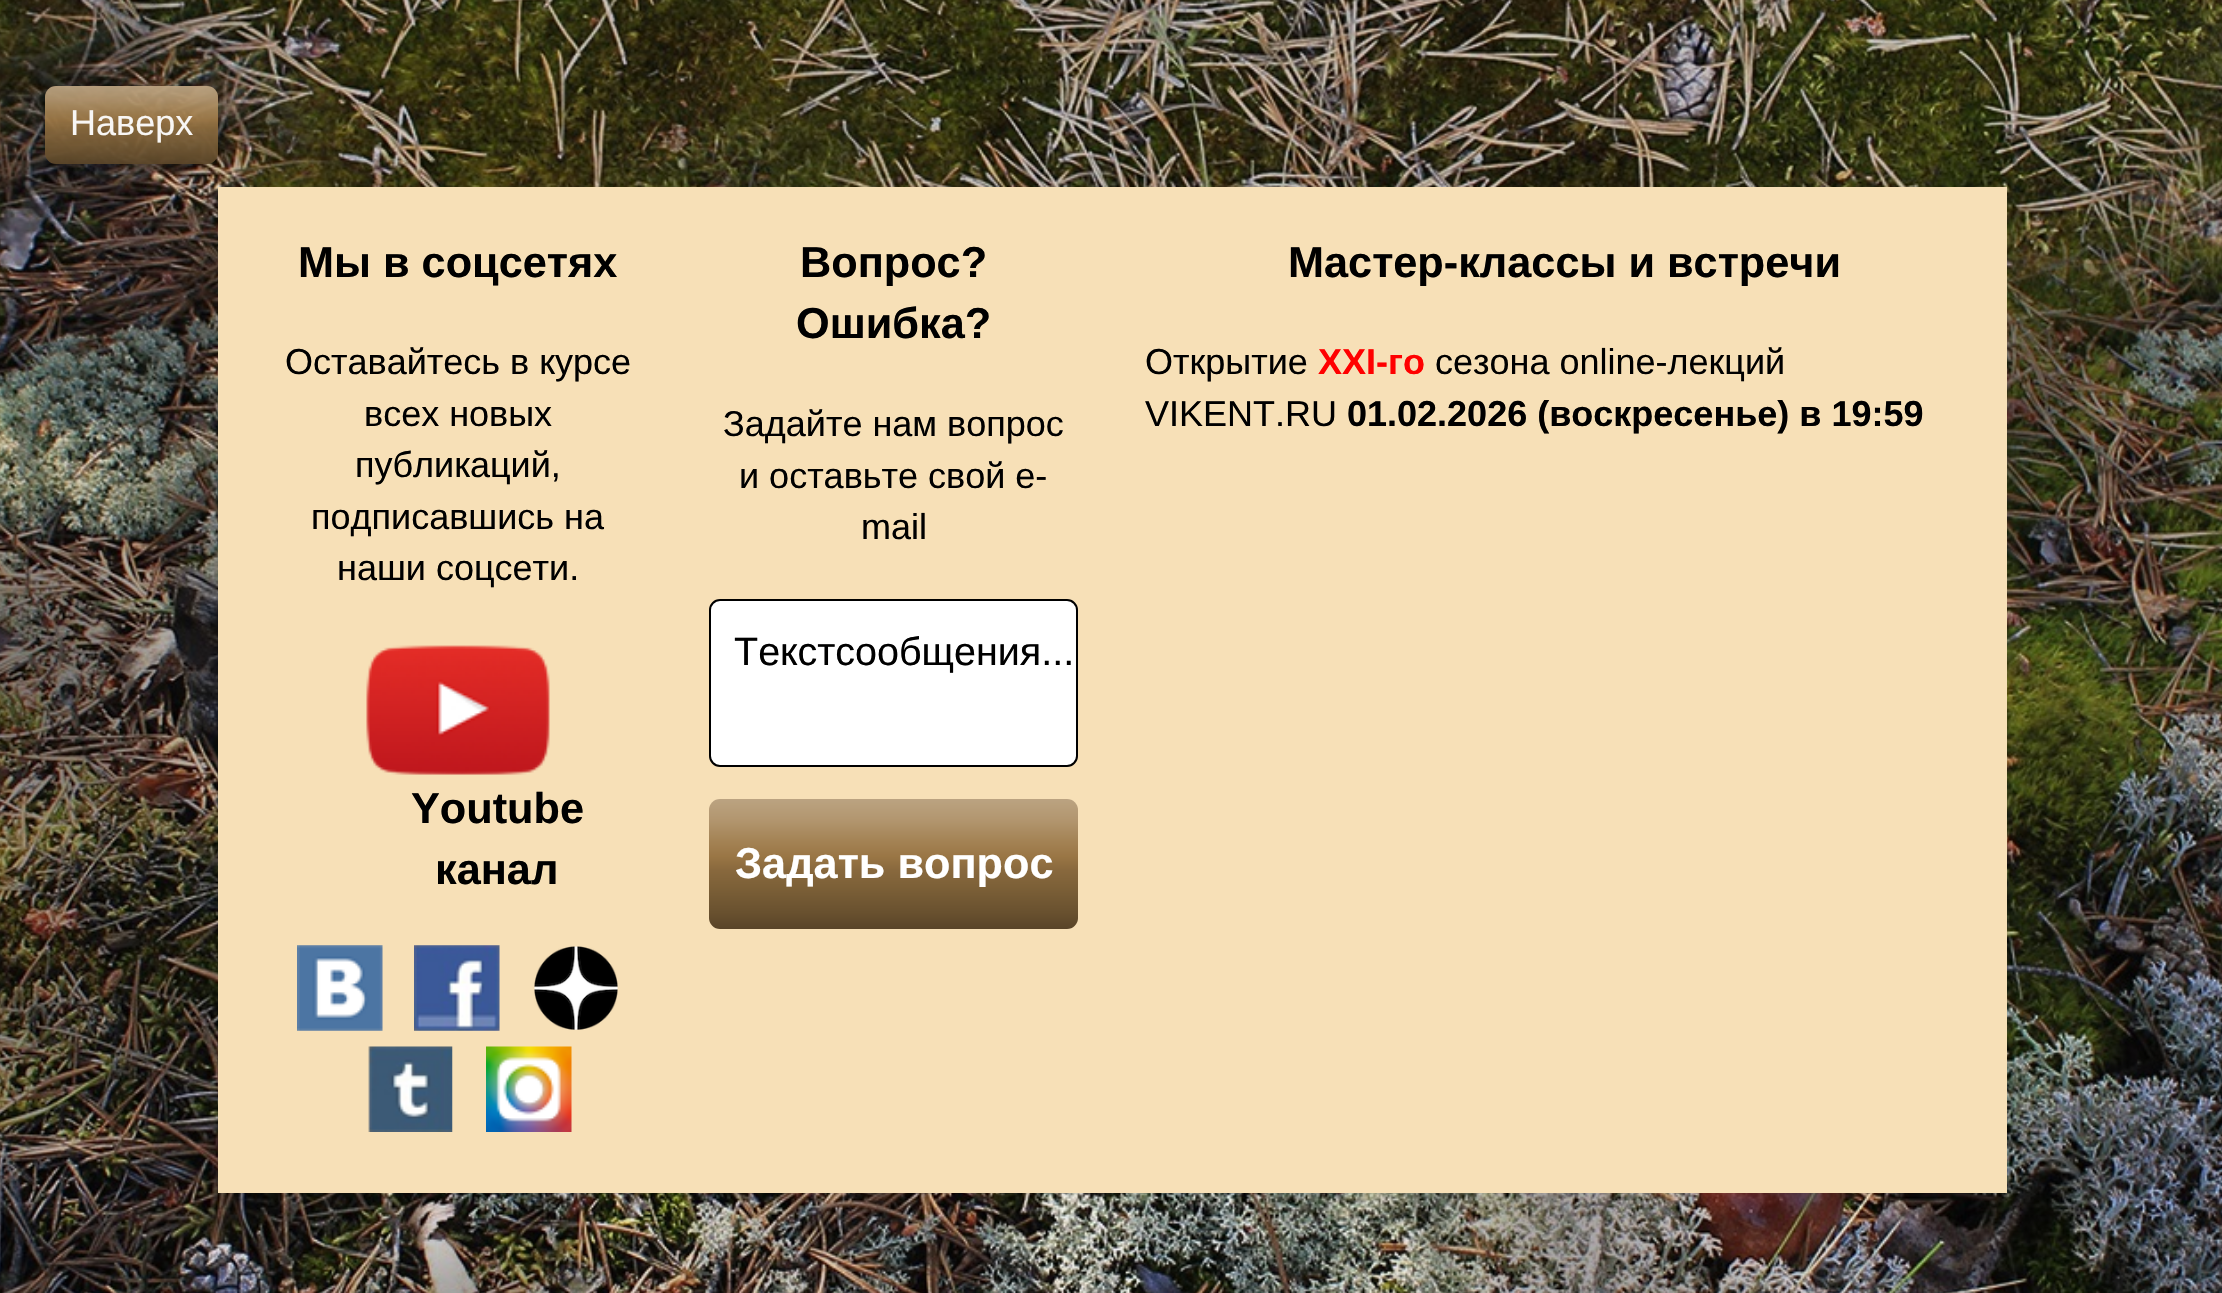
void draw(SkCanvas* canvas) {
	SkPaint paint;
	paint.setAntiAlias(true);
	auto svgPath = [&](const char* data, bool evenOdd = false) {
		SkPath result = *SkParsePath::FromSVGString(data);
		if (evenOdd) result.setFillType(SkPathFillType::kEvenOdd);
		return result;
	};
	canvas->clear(0xffffffff);
	canvas->drawImageRect(SkImages::DeferredFromEncodedData(SkData::MakeFromFileName("img1.png")), SkRect::MakeXYWH(0, 0, 2222, 1293), SkSamplingOptions());
	canvas->save();
	canvas->clipPath(svgPath("M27 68H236V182H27ZM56 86H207C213 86 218 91 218 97V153C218 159 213 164 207 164H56C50 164 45 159 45 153V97C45 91 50 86 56 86Z", true), true);
	paint.setColor(0x47000000);
	paint.setMaskFilter(SkMaskFilter::MakeBlur(kNormal_SkBlurStyle, 5.5));
	canvas->drawRoundRect(SkRect::MakeXYWH(45, 86, 173, 78), 11, 11, paint);
	paint.setMaskFilter(nullptr);
	canvas->restore();
	{
		const SkColor colors[] = {0xf0bba381, 0xf0b2966f, 0xf0a48355, 0xf09a7645, 0xf088683d, 0xf07b5f37, 0xf069512f, 0xf0594428};
		const float stops[] = {0, 0.16, 0.32, 0.44, 0.55, 0.69, 0.87, 1};
		const SkPoint ends[] = {{132, 86}, {132, 164}};
		paint.setShader(SkGradientShader::MakeLinear(ends, colors, stops, 8, SkTileMode::kClamp));
		paint.setAlpha(255);
	}
	canvas->drawRoundRect(SkRect::MakeXYWH(45, 86, 173, 78), 11, 11, paint);
	SkFont f1(fontMgr->matchFamilyStyle("Liberation Sans", SkFontStyle::Normal()), 36);
	f1.setSubpixel(true);
	paint.setShader(nullptr);
	paint.setColor(0xfff8f6f4);
	canvas->drawString("Наверх", 70, 135, f1, paint);
	paint.setColor(0xfff7e0b7);
	canvas->drawRect(SkRect::MakeXYWH(218, 187, 1789, 1006), paint);
	SkFont f2(fontMgr->matchFamilyStyle("Liberation Sans", SkFontStyle::Bold()), 43.25);
	f2.setSubpixel(true);
	paint.setColor(0xff000000);
	canvas->drawString("Мы в соцсетях", 298, 277, f2, paint);
	canvas->drawString("Оставайтесь в курсе", 285, 374, f1, paint);
	canvas->drawString("всех новых", 364, 426, f1, paint);
	canvas->drawString("публикаций,", 355, 477, f1, paint);
	canvas->drawString("подписавшись на", 311, 529, f1, paint);
	canvas->drawString("наши соцсети.", 337, 580, f1, paint);
	canvas->drawImageRect(SkImages::DeferredFromEncodedData(SkData::MakeFromFileName("img2.png")), SkRect::MakeXYWH(366, 645, 184, 130), SkSamplingOptions());
	canvas->drawString("Youtube", 411, 823, f2, paint);
	canvas->drawString("канал", 435, 884, f2, paint);
	canvas->drawImageRect(SkImages::DeferredFromEncodedData(SkData::MakeFromFileName("img3.png")), SkRect::MakeXYWH(297, 945, 86, 86), SkSamplingOptions());
	canvas->drawImageRect(SkImages::DeferredFromEncodedData(SkData::MakeFromFileName("img4.png")), SkRect::MakeXYWH(414, 945, 86, 86), SkSamplingOptions());
	canvas->drawImageRect(SkImages::DeferredFromEncodedData(SkData::MakeFromFileName("img5.png")), SkRect::MakeXYWH(534, 946, 84, 84), SkSamplingOptions());
	canvas->drawImageRect(SkImages::DeferredFromEncodedData(SkData::MakeFromFileName("img6.png")), SkRect::MakeXYWH(368, 1046, 85, 86), SkSamplingOptions());
	canvas->drawImageRect(SkImages::DeferredFromEncodedData(SkData::MakeFromFileName("img7.png")), SkRect::MakeXYWH(486, 1046, 86, 86), SkSamplingOptions());
	canvas->drawString("Вопрос?", 800, 277, f2, paint);
	canvas->drawString("Ошибка?", 796, 338, f2, paint);
	canvas->drawString("Задайте нам вопрос", 723, 436, f1, paint);
	canvas->drawString("и оставьте свой e-", 739, 488, f1, paint);
	canvas->drawString("mail", 861, 539, f1, paint);
	paint.setColor(0xffffffff);
	canvas->drawRoundRect(SkRect::MakeXYWH(710, 600, 367, 166), 10, 10, paint);
	paint.setStroke(true);
	paint.setStrokeWidth(2);
	paint.setColor(0xff000000);
	canvas->drawRoundRect(SkRect::MakeXYWH(710, 600, 367, 166), 10, 10, paint);
	SkFont f3(fontMgr->matchFamilyStyle("Liberation Sans", SkFontStyle::Normal()), 39.5);
	f3.setSubpixel(true);
	paint.setStroke(false);
	canvas->drawString("Текстсообщения...", 734, 665, f3, paint);
	{
		const SkColor colors[] = {0xffbba381, 0xffb2966f, 0xffa48355, 0xff9a7645, 0xff88683d, 0xff7b5f37, 0xff69512f, 0xff594428};
		const float stops[] = {0, 0.16, 0.32, 0.44, 0.55, 0.69, 0.87, 1};
		const SkPoint ends[] = {{893, 799}, {893, 929}};
		paint.setShader(SkGradientShader::MakeLinear(ends, colors, stops, 8, SkTileMode::kClamp));
		paint.setAlpha(255);
	}
	canvas->drawRoundRect(SkRect::MakeXYWH(709, 799, 369, 130), 11, 11, paint);
	paint.setShader(nullptr);
	paint.setColor(0xffffffff);
	canvas->drawString("Задать вопрос", 735, 878, f2, paint);
	paint.setColor(0xff000000);
	canvas->drawString("Мастер-классы и встречи", 1288, 277, f2, paint);
	canvas->drawString("Открытие", 1145, 374, f1, paint);
	SkFont f4(fontMgr->matchFamilyStyle("Liberation Sans", SkFontStyle::Bold()), 36);
	f4.setSubpixel(true);
	paint.setColor(0xffff0000);
	canvas->drawString("XXI-го", 1318, 374, f4, paint);
	paint.setColor(0xff000000);
	canvas->drawString("сезона online-лекций", 1435, 374, f1, paint);
	canvas->drawString("VIKENT.RU", 1145, 426, f1, paint);
	canvas->drawString("01.02.2026 (воскресенье) в 19:59", 1347, 426, f4, paint);
}
